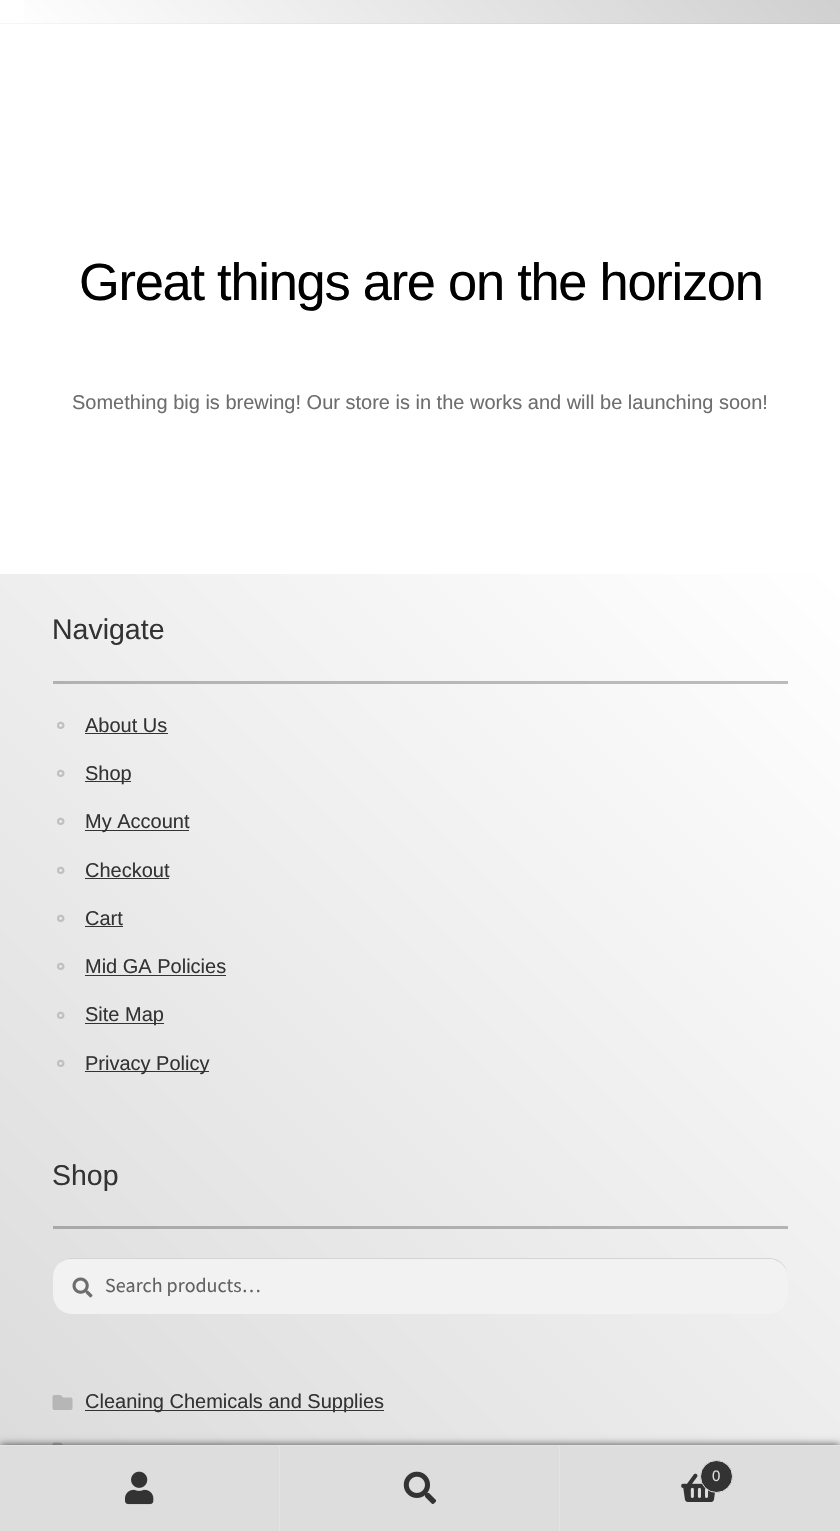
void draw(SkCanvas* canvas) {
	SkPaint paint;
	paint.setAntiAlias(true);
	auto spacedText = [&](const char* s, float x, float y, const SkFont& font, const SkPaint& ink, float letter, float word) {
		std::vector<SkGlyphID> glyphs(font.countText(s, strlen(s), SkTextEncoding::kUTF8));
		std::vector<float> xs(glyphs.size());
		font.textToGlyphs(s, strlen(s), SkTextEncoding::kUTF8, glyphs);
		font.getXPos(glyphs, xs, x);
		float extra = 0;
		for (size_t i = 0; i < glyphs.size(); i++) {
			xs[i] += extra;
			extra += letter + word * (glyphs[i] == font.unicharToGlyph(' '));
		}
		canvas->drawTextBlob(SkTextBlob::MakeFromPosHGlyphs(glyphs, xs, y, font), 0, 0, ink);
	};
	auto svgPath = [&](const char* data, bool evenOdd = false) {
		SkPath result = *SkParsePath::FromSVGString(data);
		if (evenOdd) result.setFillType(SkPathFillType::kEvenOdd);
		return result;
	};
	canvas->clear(0xffffffff);
	{
		const SkColor colors[] = {0xffffffff, 0xffc8c8c8};
		const float stops[] = {0, 1};
		const SkPoint ends[] = {{170, 192}, {670, -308}};
		paint.setShader(SkGradientShader::MakeLinear(ends, colors, stops, 2, SkTileMode::kClamp));
		paint.setAlpha(255);
	}
	canvas->drawRect(SkRect::MakeXYWH(24, 0, 816, 23), paint);
	{
		const SkColor colors[] = {0xffffffff, 0xffc8c8c8};
		const float stops[] = {0, 1};
		const SkPoint ends[] = {{170, 353}, {670, -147}};
		paint.setShader(SkGradientShader::MakeLinear(ends, colors, stops, 2, SkTileMode::kClamp));
		paint.setAlpha(255);
	}
	canvas->drawRect(SkRect::MakeXYWH(0, 23, 840, 1), paint);
	SkFont f1(fontMgr->matchFamilyStyle("Liberation Sans", SkFontStyle::Normal()), 52.4);
	f1.setSubpixel(true);
	paint.setShader(nullptr);
	paint.setColor(0xff000000);
	spacedText("Great things are on the horizon", 79, 300, f1, paint, -1.25, 0);
	SkFont f2(fontMgr->matchFamilyStyle("Liberation Sans", SkFontStyle::Normal()), 20);
	f2.setSubpixel(true);
	paint.setColor(0xff6d6d6d);
	canvas->drawString("Something big is brewing! Our store is in the works and will be launching soon!", 72, 409, f2, paint);
	{
		const SkColor colors[] = {0xffc8c8c8, 0xffffffff};
		const float stops[] = {0, 1};
		const SkPoint ends[] = {{-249, 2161}, {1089, 823}};
		paint.setShader(SkGradientShader::MakeLinear(ends, colors, stops, 2, SkTileMode::kClamp));
		paint.setAlpha(255);
	}
	canvas->drawRect(SkRect::MakeXYWH(0, 574, 840, 871), paint);
	{
		const SkColor colors[] = {0xff969696, 0xffbfbfbf};
		const float stops[] = {0, 1};
		const SkPoint ends[] = {{-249, 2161}, {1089, 823}};
		paint.setShader(SkGradientShader::MakeLinear(ends, colors, stops, 2, SkTileMode::kClamp));
		paint.setAlpha(255);
	}
	canvas->drawRect(SkRect::MakeXYWH(53, 1226, 735, 3), paint);
	canvas->drawRect(SkRect::MakeXYWH(53, 681, 735, 3), paint);
	SkFont f3(fontMgr->matchFamilyStyle("Liberation Sans", SkFontStyle::Normal()), 28.5);
	f3.setSubpixel(true);
	paint.setShader(nullptr);
	paint.setColor(0xff333333);
	canvas->drawString("Navigate", 52, 639, f3, paint);
	SkFont f4(fontMgr->matchFamilyStyle("DejaVu Sans", SkFontStyle::Bold()), 20);
	f4.setSubpixel(true);
	paint.setColor(0xffc0c0c0);
	canvas->drawString("⚬", 52, 733, f4, paint);
	paint.setColor(0xff333333);
	canvas->drawString("About Us", 85, 732, f2, paint);
	canvas->drawRect(SkRect::MakeXYWH(85, 733, 83, 1), paint);
	paint.setColor(0xffc0c0c0);
	canvas->drawString("⚬", 52, 781, f4, paint);
	paint.setColor(0xff333333);
	canvas->drawRect(SkRect::MakeXYWH(85, 781, 46, 1), paint);
	canvas->drawString("Shop", 85, 780, f2, paint);
	paint.setColor(0xffc0c0c0);
	canvas->drawString("⚬", 52, 829, f4, paint);
	paint.setColor(0xff333333);
	canvas->drawRect(SkRect::MakeXYWH(85, 830, 104, 1), paint);
	canvas->drawString("My Account", 85, 828, f2, paint);
	paint.setColor(0xffc0c0c0);
	canvas->drawString("⚬", 52, 878, f4, paint);
	paint.setColor(0xff333333);
	canvas->drawString("Checkout", 85, 877, f2, paint);
	canvas->drawRect(SkRect::MakeXYWH(85, 878, 84, 1), paint);
	paint.setColor(0xffc0c0c0);
	canvas->drawString("⚬", 52, 926, f4, paint);
	paint.setColor(0xff333333);
	canvas->drawString("Cart", 85, 925, f2, paint);
	canvas->drawRect(SkRect::MakeXYWH(85, 926, 38, 1), paint);
	paint.setColor(0xffc0c0c0);
	canvas->drawString("⚬", 52, 974, f4, paint);
	paint.setColor(0xff333333);
	canvas->drawString("Mid GA Policies", 85, 973, f2, paint);
	canvas->drawRect(SkRect::MakeXYWH(85, 975, 141, 1), paint);
	paint.setColor(0xffc0c0c0);
	canvas->drawString("⚬", 52, 1023, f4, paint);
	paint.setColor(0xff333333);
	canvas->drawRect(SkRect::MakeXYWH(85, 1023, 79, 1), paint);
	canvas->drawString("Site Map", 85, 1021, f2, paint);
	paint.setColor(0xffc0c0c0);
	canvas->drawString("⚬", 52, 1071, f4, paint);
	paint.setColor(0xff333333);
	canvas->drawRect(SkRect::MakeXYWH(85, 1071, 124, 1), paint);
	canvas->drawString("Privacy Policy", 85, 1070, f2, paint);
	canvas->drawString("Shop", 52, 1185, f3, paint);
	paint.setColor(0xfff2f2f2);
	canvas->drawRoundRect(SkRect::MakeXYWH(53, 1258, 735, 56), 19, 19, paint);
	paint.setColor(0x1f000000);
	canvas->drawPath(svgPath("M71 1259H769C779 1259 788 1267 788 1278C788 1267 780 1258 769 1258H70C65 1259 61 1261 58 1264C62 1261 66 1259 71 1259Z"), paint);
	canvas->drawImageRect(SkImages::DeferredFromEncodedData(SkData::MakeFromFileName("img1.png")), SkRect::MakeXYWH(72, 1277, 21, 21), SkSamplingOptions());
	SkFont f5(fontMgr->matchFamilyStyle("Source Sans Pro", SkFontStyle::Normal()), 20);
	f5.setSubpixel(true);
	paint.setColor(0xff616161);
	canvas->drawString("Search products…", 105, 1292, f5, paint);
	canvas->drawImageRect(SkImages::DeferredFromEncodedData(SkData::MakeFromFileName("img2.png")), SkRect::MakeXYWH(52, 1395, 21, 15), SkSamplingOptions());
	paint.setColor(0xff333333);
	canvas->drawRect(SkRect::MakeXYWH(85, 1410, 299, 1), paint);
	canvas->drawString("Cleaning Chemicals and Supplies", 85, 1408, f2, paint);
	canvas->drawImageRect(SkImages::DeferredFromEncodedData(SkData::MakeFromFileName("img3.png")), SkRect::MakeXYWH(52, 1442, 11, 3), SkSamplingOptions());
	paint.setColor(0xb3000000);
	paint.setMaskFilter(SkMaskFilter::MakeBlur(kNormal_SkBlurStyle, 4));
	canvas->drawRect(SkRect::MakeXYWH(0, 1445, 840, 86), paint);
	paint.setMaskFilter(nullptr);
	paint.setColor(0xffe4e4e4);
	canvas->drawRect(SkRect::MakeXYWH(0, 1445, 840, 1), paint);
	paint.setColor(0xffdddddd);
	canvas->drawRect(SkRect::MakeXYWH(0, 1446, 279, 85), paint);
	paint.setColor(0xffe4e4e4);
	canvas->drawRect(SkRect::MakeXYWH(279, 1446, 1, 85), paint);
	canvas->drawImageRect(SkImages::DeferredFromEncodedData(SkData::MakeFromFileName("img4.png")), SkRect::MakeXYWH(125, 1471, 29, 34), SkSamplingOptions());
	paint.setColor(0xffdddddd);
	canvas->drawRect(SkRect::MakeXYWH(280, 1446, 279, 85), paint);
	paint.setColor(0xffe4e4e4);
	canvas->drawRect(SkRect::MakeXYWH(559, 1446, 1, 85), paint);
	canvas->drawImageRect(SkImages::DeferredFromEncodedData(SkData::MakeFromFileName("img5.png")), SkRect::MakeXYWH(403, 1471, 34, 33), SkSamplingOptions());
	paint.setColor(0xffdddddd);
	canvas->drawRect(SkRect::MakeXYWH(560, 1446, 280, 85), paint);
	canvas->drawImageRect(SkImages::DeferredFromEncodedData(SkData::MakeFromFileName("img6.png")), SkRect::MakeXYWH(681, 1473, 34, 29), SkSamplingOptions());
	paint.setColor(0xff333333);
	canvas->drawCircle(716.5, 1476.5, 16, paint);
	paint.setStroke(true);
	paint.setStrokeWidth(1);
	paint.setColor(0xffdddddd);
	canvas->drawCircle(716.5, 1476.5, 16, paint);
	SkFont f6(fontMgr->matchFamilyStyle("Liberation Sans", SkFontStyle::Normal()), 15);
	f6.setSubpixel(true);
	paint.setStroke(false);
	canvas->drawString("0", 712, 1481, f6, paint);
}
